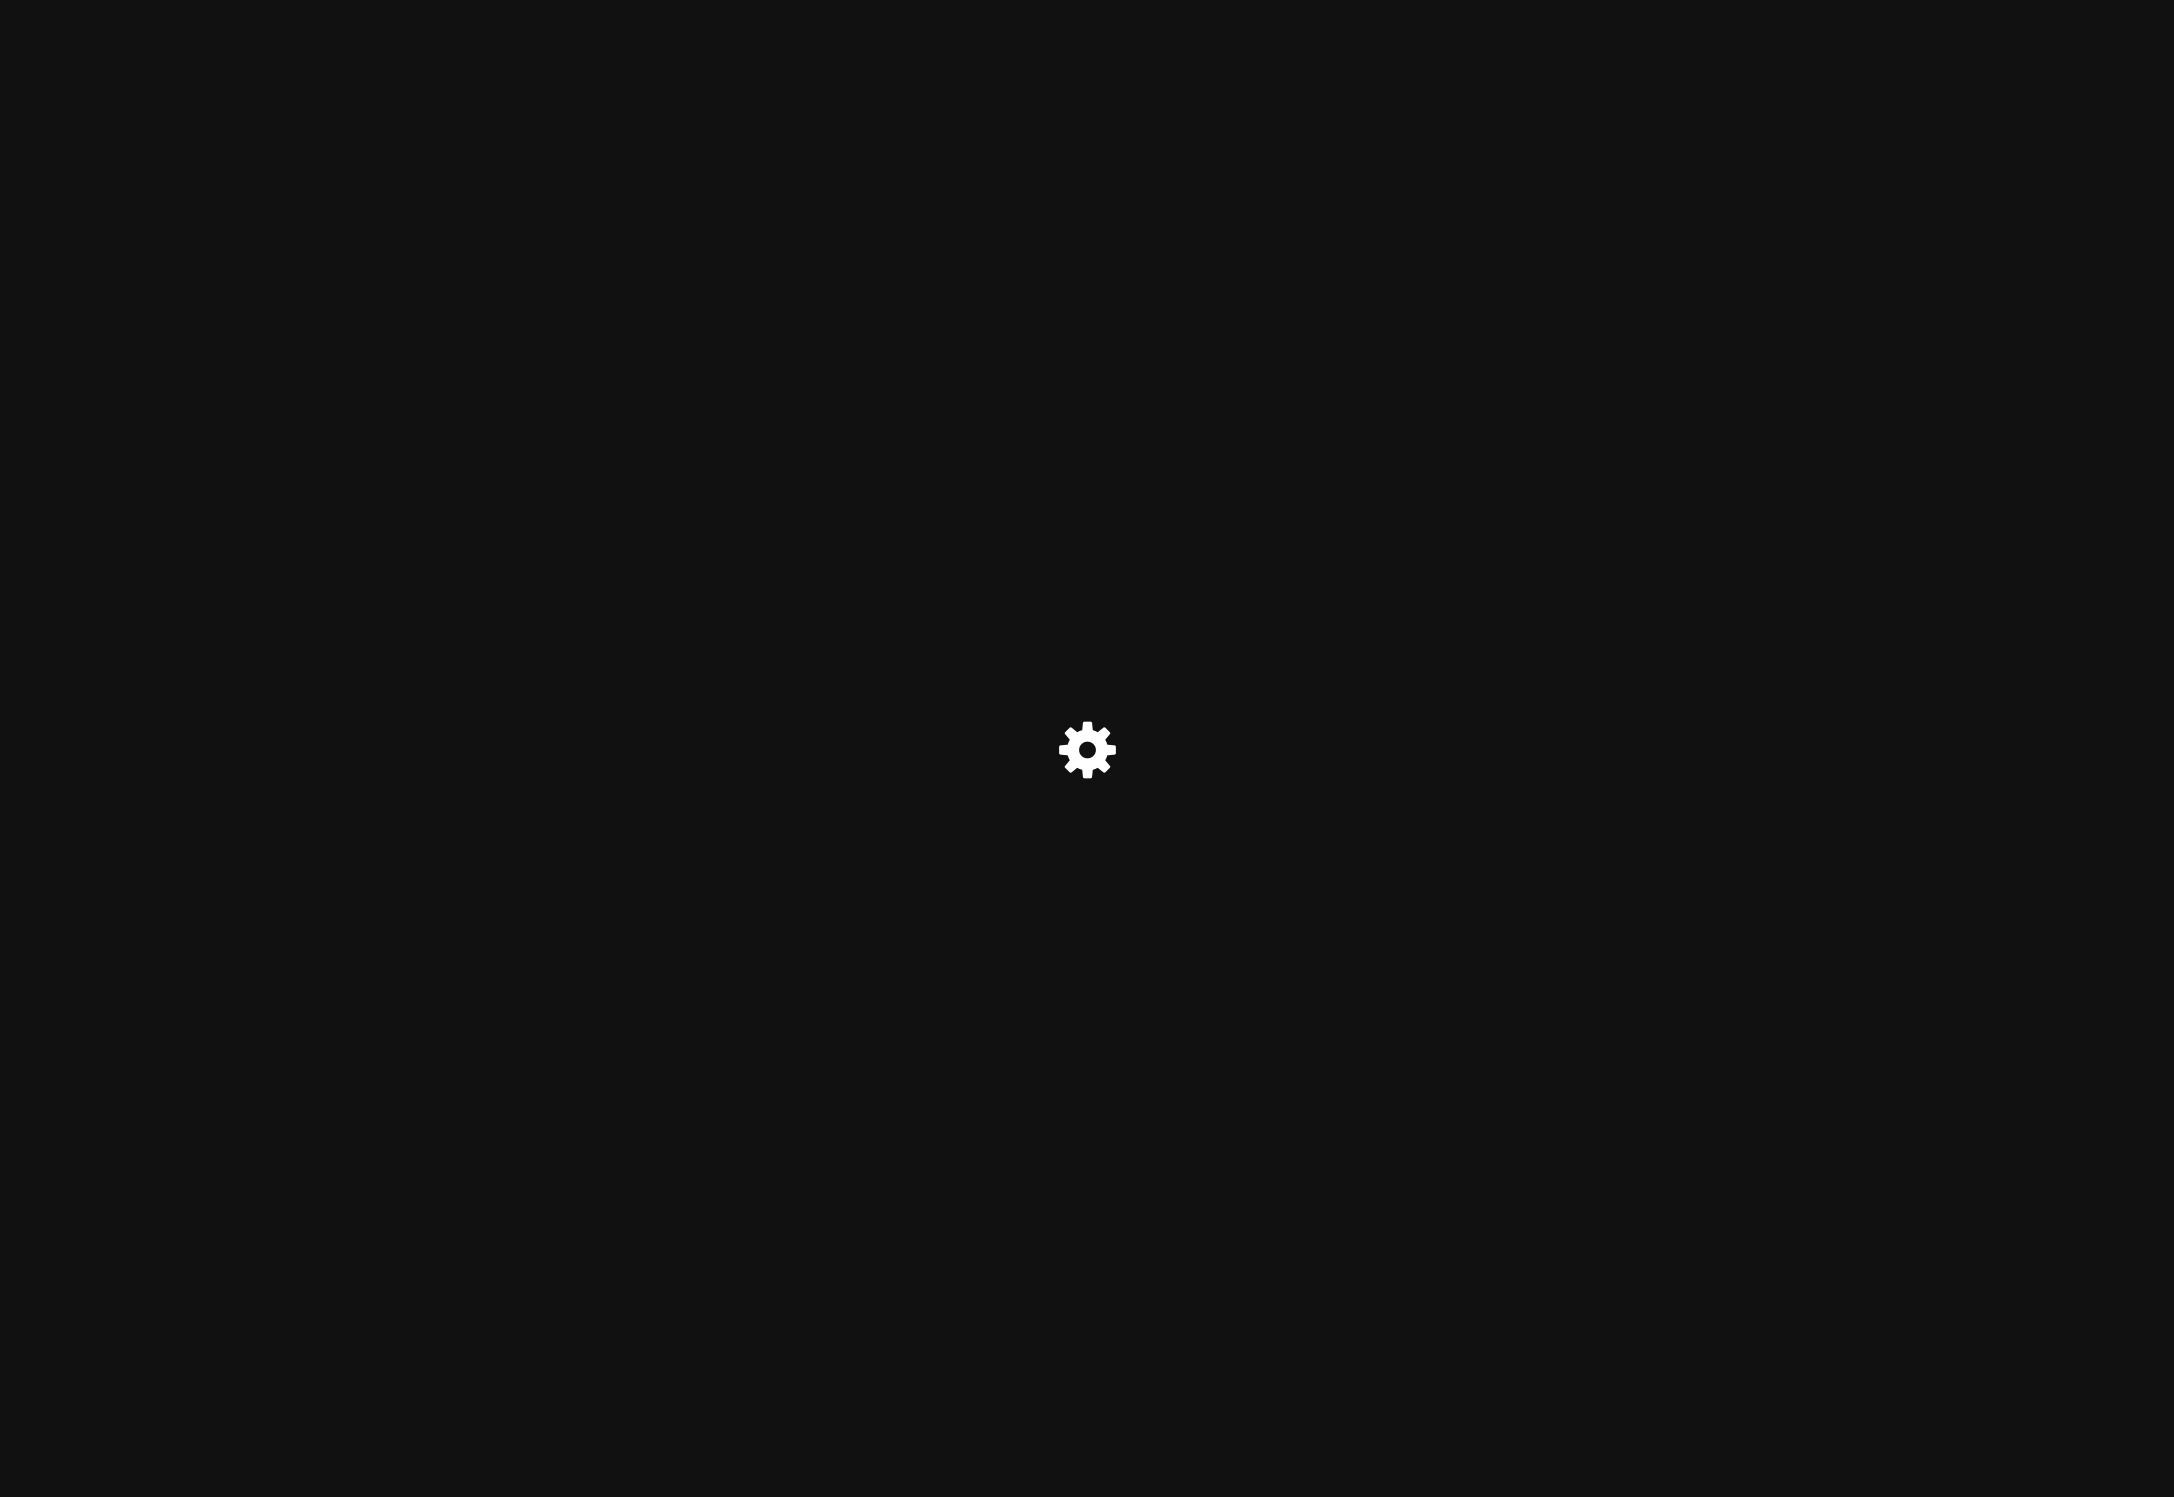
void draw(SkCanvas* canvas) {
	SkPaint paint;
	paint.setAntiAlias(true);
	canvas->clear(0xff111111);
	canvas->drawImageRect(SkImages::DeferredFromEncodedData(SkData::MakeFromFileName("img1.png")), SkRect::MakeXYWH(1059, 721, 57, 58), SkSamplingOptions());
}
